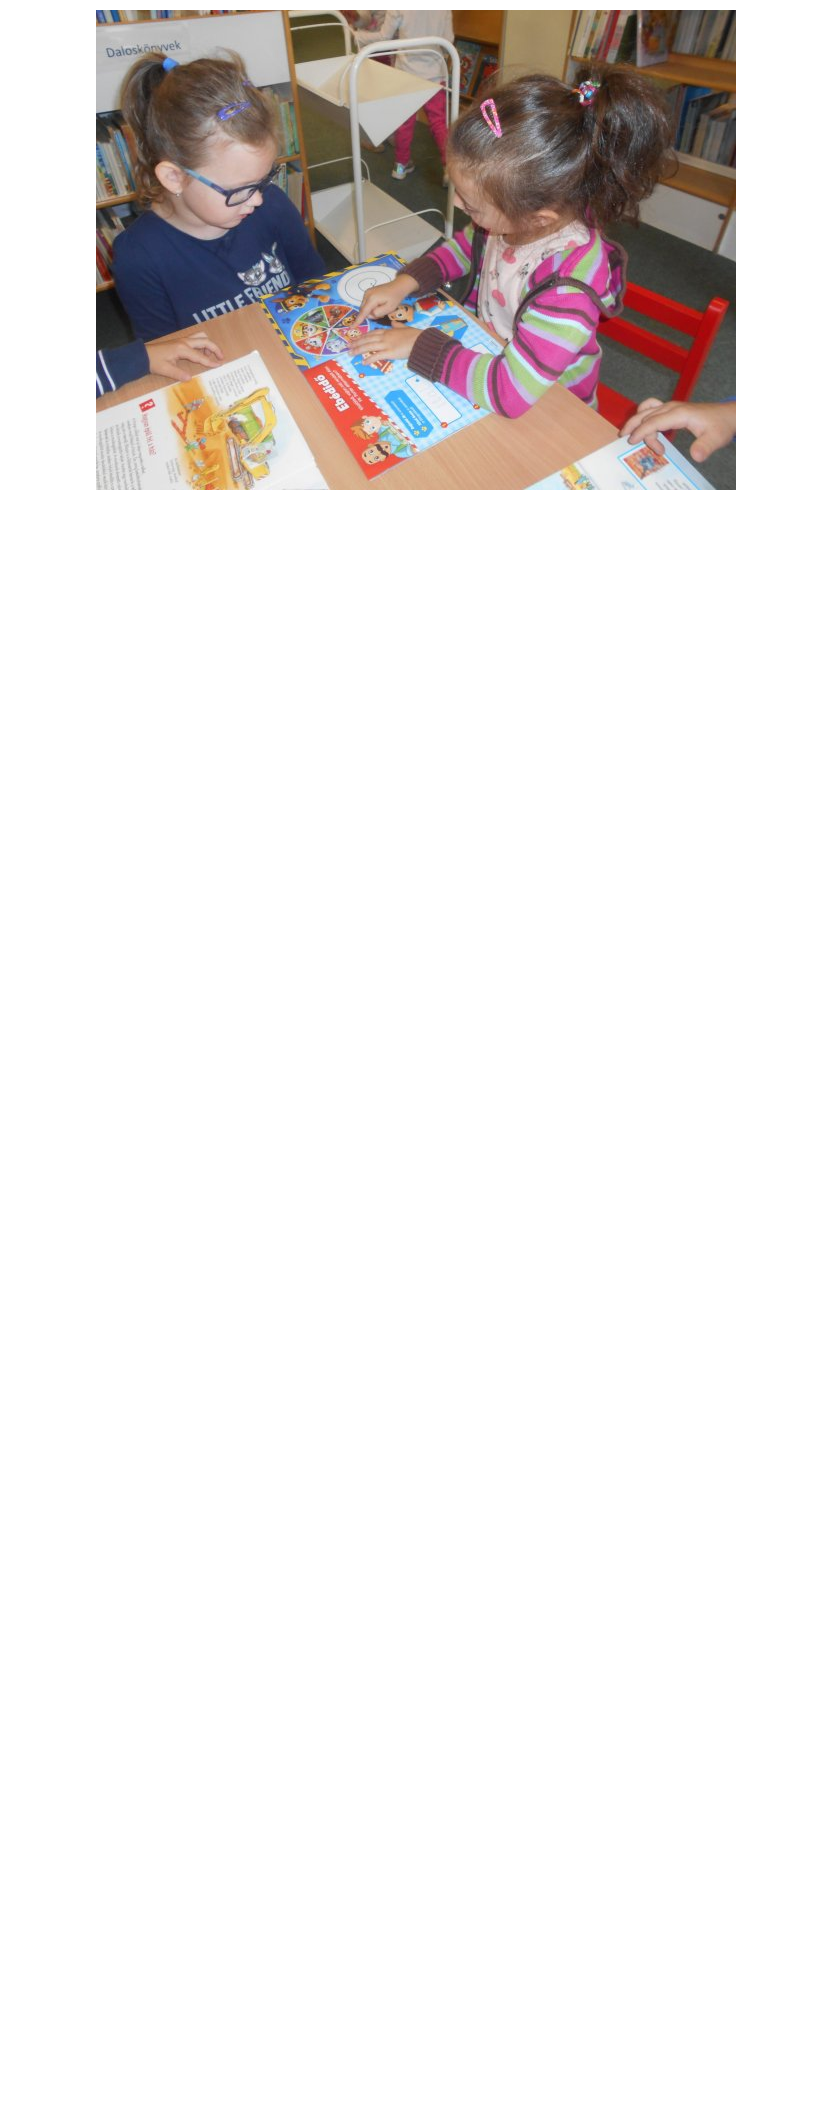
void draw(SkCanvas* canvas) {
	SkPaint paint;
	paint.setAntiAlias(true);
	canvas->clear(0xffffffff);
	canvas->drawImageRect(SkImages::DeferredFromEncodedData(SkData::MakeFromFileName("img1.png")), SkRect::MakeXYWH(96, 10, 640, 480), SkSamplingOptions());
}
